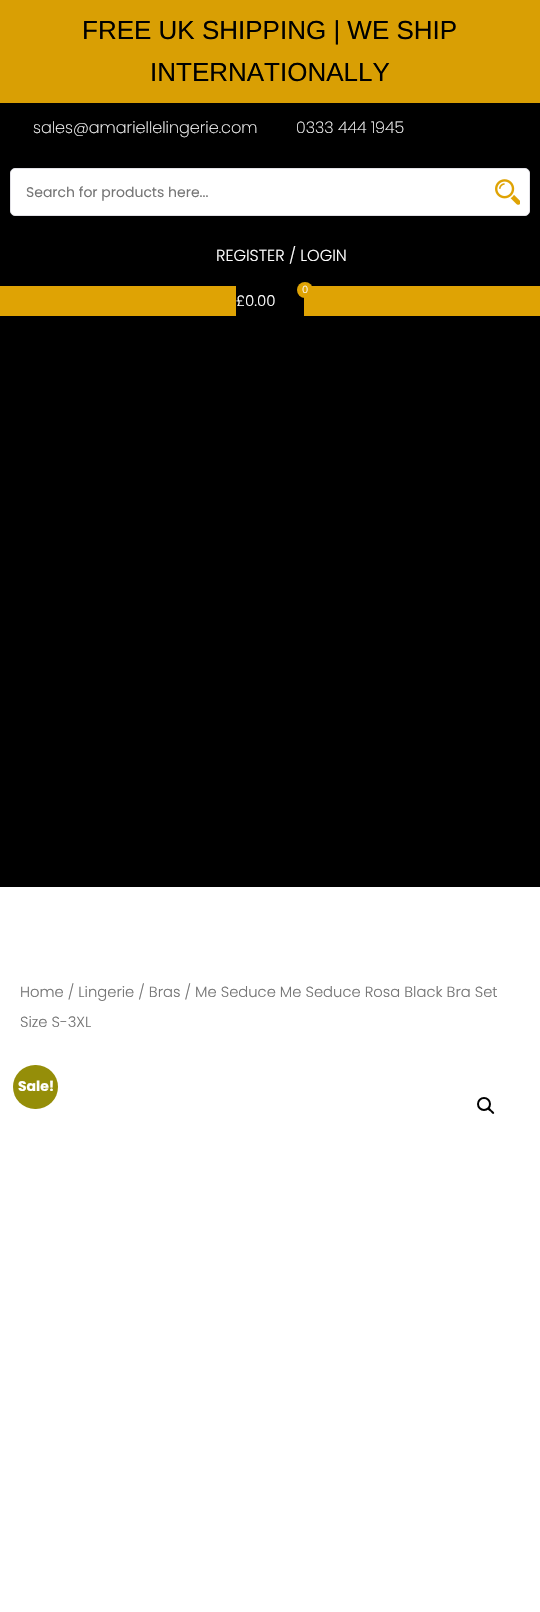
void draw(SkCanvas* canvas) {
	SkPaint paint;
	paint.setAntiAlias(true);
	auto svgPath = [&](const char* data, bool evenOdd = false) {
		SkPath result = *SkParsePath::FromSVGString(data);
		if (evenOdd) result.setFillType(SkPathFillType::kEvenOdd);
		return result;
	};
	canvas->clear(0xffffffff);
	paint.setColor(0xffd99f04);
	canvas->drawRect(SkRect::MakeXYWH(0, 0, 540, 103), paint);
	SkFont f1(fontMgr->matchFamilyStyle("Liberation Sans", SkFontStyle::Normal()), 26);
	f1.setSubpixel(true);
	paint.setColor(0xff000000);
	canvas->drawString("FREE UK SHIPPING | WE SHIP", 82, 39, f1, paint);
	canvas->drawString("INTERNATIONALLY", 150, 81, f1, paint);
	canvas->drawRect(SkRect::MakeXYWH(0, 103, 540, 784), paint);
	SkFont f2(fontMgr->matchFamilyStyle("Poppins", SkFontStyle(200, SkFontStyle::kNormal_Width, SkFontStyle::kUpright_Slant)), 16);
	f2.setSubpixel(true);
	paint.setColor(0xffffffff);
	canvas->drawString("sales@amariellelingerie.com", 33, 133, f2, paint);
	canvas->drawString("0333 444 1945", 296, 133, f2, paint);
	canvas->drawRoundRect(SkRect::MakeXYWH(10.5, 168.5, 519, 47), 4.5, 4.5, paint);
	paint.setStroke(true);
	paint.setStrokeWidth(1);
	paint.setColor(0xffe2e1e6);
	canvas->drawRoundRect(SkRect::MakeXYWH(10.5, 168.5, 519, 47), 4.5, 4.5, paint);
	SkFont f3(fontMgr->matchFamilyStyle("Poppins", SkFontStyle::Normal()), 14);
	f3.setSubpixel(true);
	paint.setStroke(false);
	paint.setColor(0xff767676);
	canvas->drawString("Search for products here...", 26, 197, f3, paint);
	canvas->drawImageRect(SkImages::DeferredFromEncodedData(SkData::MakeFromFileName("img1.png")), SkRect::MakeXYWH(495, 179, 25, 26), SkSamplingOptions());
	SkFont f4(fontMgr->matchFamilyStyle("Poppins", SkFontStyle(300, SkFontStyle::kNormal_Width, SkFontStyle::kUpright_Slant)), 16);
	f4.setSubpixel(true);
	paint.setColor(0xffffffff);
	canvas->drawString("REGISTER / LOGIN", 216, 261, f4, paint);
	paint.setColor(0xffdfa304);
	canvas->drawRect(SkRect::MakeXYWH(0, 286, 540, 30), paint);
	paint.setColor(0xff000000);
	canvas->drawRect(SkRect::MakeXYWH(236, 286, 68, 30), paint);
	paint.setColor(0xffdfa304);
	canvas->drawCircle(305, 290, 8, paint);
	SkFont f5(fontMgr->matchFamilyStyle("Poppins", SkFontStyle(300, SkFontStyle::kNormal_Width, SkFontStyle::kUpright_Slant)), 10);
	f5.setSubpixel(true);
	paint.setColor(0xffffffff);
	canvas->drawString("0", 302, 293, f5, paint);
	SkFont f6(fontMgr->matchFamilyStyle("Poppins", SkFontStyle(300, SkFontStyle::kNormal_Width, SkFontStyle::kUpright_Slant)), 15);
	f6.setSubpixel(true);
	canvas->drawString("£0.00", 236, 306, f6, paint);
	SkFont f7(fontMgr->matchFamilyStyle("Poppins", SkFontStyle(300, SkFontStyle::kNormal_Width, SkFontStyle::kUpright_Slant)), 14.75);
	f7.setSubpixel(true);
	paint.setColor(0xff767676);
	canvas->drawString("Home / Lingerie / Bras / Me Seduce Me Seduce Rosa Black Bra Set", 20, 997, f7, paint);
	canvas->drawString("Size S-3XL", 20, 1027, f7, paint);
	paint.setColor(0xff958e09);
	canvas->drawRoundRect(SkRect::MakeXYWH(13, 1065, 45, 44), 22, 22, paint);
	SkFont f8(fontMgr->matchFamilyStyle("Poppins", SkFontStyle::Bold()), 14);
	f8.setSubpixel(true);
	paint.setColor(0xffffffff);
	canvas->drawString("Sale!", 18, 1091, f8, paint);
	paint.setStroke(true);
	paint.setStrokeWidth(2);
	paint.setColor(0xff000000);
	canvas->drawCircle(484, 1104, 6, paint);
	paint.setStroke(false);
	canvas->drawPath(svgPath("M488 1108C489.5 1107 491 1109.5 491.5 1110C492.5 1111 495 1112.5 494 1113.5C492.5 1115 491 1112 490.5 1111.5C489.5 1111 487 1109.5 488 1108Z"), paint);
}
